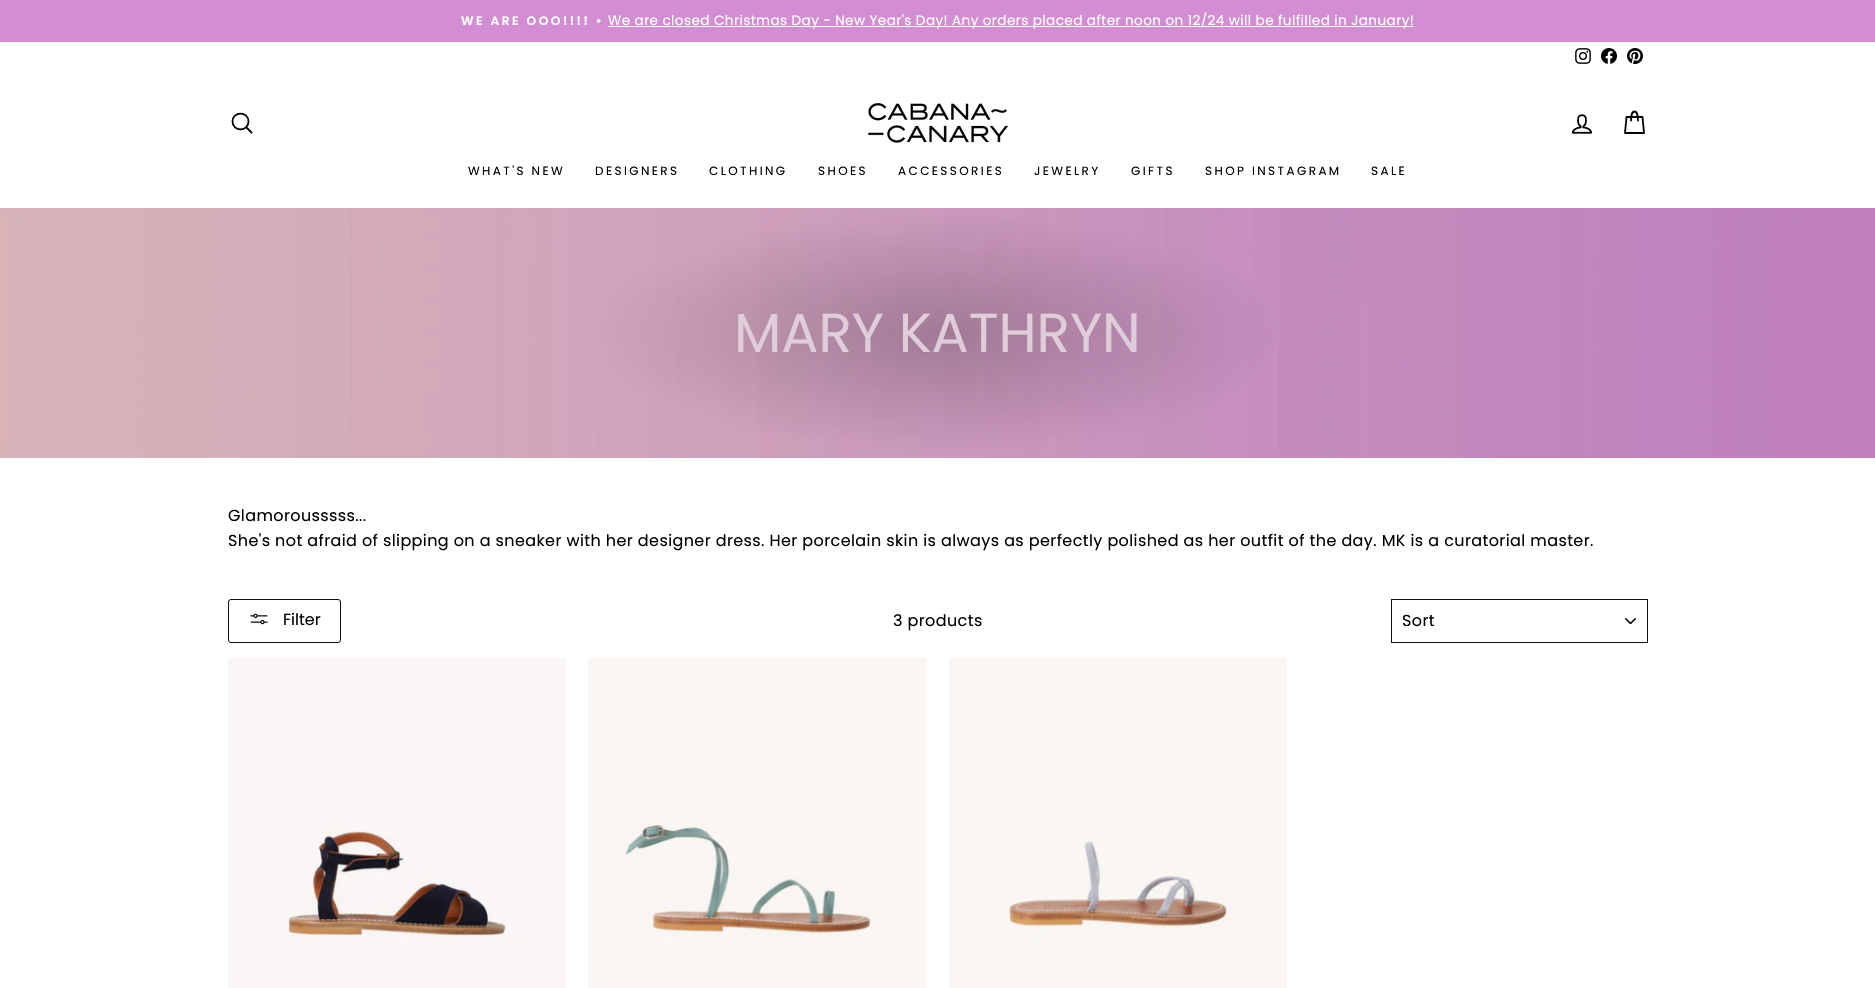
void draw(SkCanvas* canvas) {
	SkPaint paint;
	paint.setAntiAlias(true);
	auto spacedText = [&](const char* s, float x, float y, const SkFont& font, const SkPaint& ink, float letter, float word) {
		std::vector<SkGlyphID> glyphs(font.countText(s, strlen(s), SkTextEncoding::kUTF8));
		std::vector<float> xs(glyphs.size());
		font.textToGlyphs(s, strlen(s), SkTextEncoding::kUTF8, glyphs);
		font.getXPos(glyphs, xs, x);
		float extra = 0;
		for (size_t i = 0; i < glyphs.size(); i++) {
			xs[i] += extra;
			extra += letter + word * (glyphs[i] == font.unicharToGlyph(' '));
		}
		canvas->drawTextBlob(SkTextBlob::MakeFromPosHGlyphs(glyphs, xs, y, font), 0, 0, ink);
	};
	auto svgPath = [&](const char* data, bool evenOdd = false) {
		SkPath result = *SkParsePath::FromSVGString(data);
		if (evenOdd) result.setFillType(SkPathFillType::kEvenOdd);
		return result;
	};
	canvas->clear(0xffffffff);
	paint.setColor(0xffd28dd3);
	canvas->drawRect(SkRect::MakeXYWH(0, 0, 1875, 42), paint);
	SkFont f1(fontMgr->matchFamilyStyle("Poppins", SkFontStyle(600, SkFontStyle::kNormal_Width, SkFontStyle::kUpright_Slant)), 12.25);
	f1.setSubpixel(true);
	paint.setColor(0xffffffff);
	spacedText("WE ARE OOO!!!! •", 461, 25, f1, paint, 2.5, 0);
	canvas->drawRect(SkRect::MakeXYWH(608, 26, 806, 1), paint);
	SkFont f2(fontMgr->matchFamilyStyle("Poppins", SkFontStyle::Normal()), 13.6);
	f2.setSubpixel(true);
	spacedText("We are closed Christmas Day - New Year's Day! Any orders placed after noon on 12/24 will be fulfilled in January!", 608, 25, f2, paint, 0.4, 0);
	canvas->drawImageRect(SkImages::DeferredFromEncodedData(SkData::MakeFromFileName("img1.png")), SkRect::MakeXYWH(1575, 48, 16, 16), SkSamplingOptions());
	canvas->drawImageRect(SkImages::DeferredFromEncodedData(SkData::MakeFromFileName("img2.png")), SkRect::MakeXYWH(1601, 48, 16, 16), SkSamplingOptions());
	canvas->drawImageRect(SkImages::DeferredFromEncodedData(SkData::MakeFromFileName("img3.png")), SkRect::MakeXYWH(1627, 48, 16, 16), SkSamplingOptions());
	paint.setStroke(true);
	paint.setStrokeWidth(1.8);
	paint.setStrokeCap(SkPaint::kRound_Cap);
	paint.setStrokeJoin(SkPaint::kRound_Join);
	paint.setColor(0xff000000);
	canvas->drawPath(svgPath("M248.5 121.5C248.5 132 232.5 132 232.5 121.5C232.5 111 248.5 111 248.5 121.5ZM251.5 132.5L246.5 127.5"), paint);
	canvas->drawImageRect(SkImages::DeferredFromEncodedData(SkData::MakeFromFileName("img4.png")), SkRect::MakeXYWH(868, 103, 140, 40), SkSamplingOptions());
	canvas->drawImageRect(SkImages::DeferredFromEncodedData(SkData::MakeFromFileName("img5.png")), SkRect::MakeXYWH(1571, 114, 22, 20), SkSamplingOptions());
	canvas->drawPath(svgPath("M1631 120.5C1631 108.5 1638 108.5 1638 120.5M1626.5 117H1642.5L1644 133H1625Z"), paint);
	SkFont f3(fontMgr->matchFamilyStyle("Poppins", SkFontStyle::Normal()), 12);
	f3.setSubpixel(true);
	paint.setStroke(false);
	spacedText("WHAT'S NEW", 468, 175, f3, paint, 2.4, 0);
	spacedText("DESIGNERS", 595, 175, f3, paint, 2.4, 0);
	spacedText("CLOTHING", 709, 175, f3, paint, 2.4, 0);
	spacedText("SHOES", 818, 175, f3, paint, 2.4, 0);
	spacedText("ACCESSORIES", 898, 175, f3, paint, 2.4, 0);
	spacedText("JEWELRY", 1034, 175, f3, paint, 2.4, 0);
	spacedText("GIFTS", 1131, 175, f3, paint, 2.4, 0);
	spacedText("SHOP INSTAGRAM", 1205, 175, f3, paint, 2.4, 0);
	spacedText("SALE", 1371, 175, f3, paint, 2.4, 0);
	canvas->drawImageRect(SkImages::DeferredFromEncodedData(SkData::MakeFromFileName("img6.png")), SkRect::MakeXYWH(0, 208, 1875, 250), SkSamplingOptions());
	SkFont f4(fontMgr->matchFamilyStyle("Poppins", SkFontStyle::Normal()), 55);
	f4.setSubpixel(true);
	paint.setColor(0xffdfceda);
	canvas->drawString("MARY KATHRYN", 734, 352, f4, paint);
	SkFont f5(fontMgr->matchFamilyStyle("Poppins", SkFontStyle::Normal()), 16);
	f5.setSubpixel(true);
	paint.setColor(0xff000000);
	spacedText("Glamorousssss...", 228, 521, f5, paint, 0.4, 0);
	spacedText("She's not afraid of slipping on a sneaker with her designer dress. Her porcelain skin is always as perfectly polished as her outfit of the day. MK is a curatorial master.", 228, 546, f5, paint, 0.4, 0);
	paint.setStroke(true);
	paint.setStrokeWidth(1);
	paint.setStrokeCap(SkPaint::kButt_Cap);
	paint.setStrokeJoin(SkPaint::kMiter_Join);
	paint.setColor(0xff0f0f0f);
	canvas->drawRoundRect(SkRect::MakeXYWH(228.5, 599.5, 112, 43), 2.5, 2.5, paint);
	canvas->drawImageRect(SkImages::DeferredFromEncodedData(SkData::MakeFromFileName("img7.png")), SkRect::MakeXYWH(250, 613, 18, 12), SkSamplingOptions());
	paint.setStroke(false);
	paint.setColor(0xff000000);
	canvas->drawString("Filter", 283, 625, f5, paint);
	spacedText("3 products", 893, 626, f5, paint, 0.4, 0);
	canvas->drawImageRect(SkImages::DeferredFromEncodedData(SkData::MakeFromFileName("img8.png")), SkRect::MakeXYWH(1625, 618, 11, 6), SkSamplingOptions());
	paint.setStroke(true);
	paint.setColor(0xff0f0f0f);
	canvas->drawRect(SkRect::MakeXYWH(1391.5, 599.5, 256, 43), paint);
	paint.setStroke(false);
	paint.setColor(0xff000000);
	spacedText("Sort", 1402, 626, f5, paint, 0.4, 0);
	canvas->drawImageRect(SkImages::DeferredFromEncodedData(SkData::MakeFromFileName("img9.png")), SkRect::MakeXYWH(228, 658, 338, 330), SkSamplingOptions());
	canvas->drawImageRect(SkImages::DeferredFromEncodedData(SkData::MakeFromFileName("img10.png")), SkRect::MakeXYWH(588, 658, 339, 330), SkSamplingOptions());
	canvas->drawImageRect(SkImages::DeferredFromEncodedData(SkData::MakeFromFileName("img11.png")), SkRect::MakeXYWH(949, 658, 338, 330), SkSamplingOptions());
}
